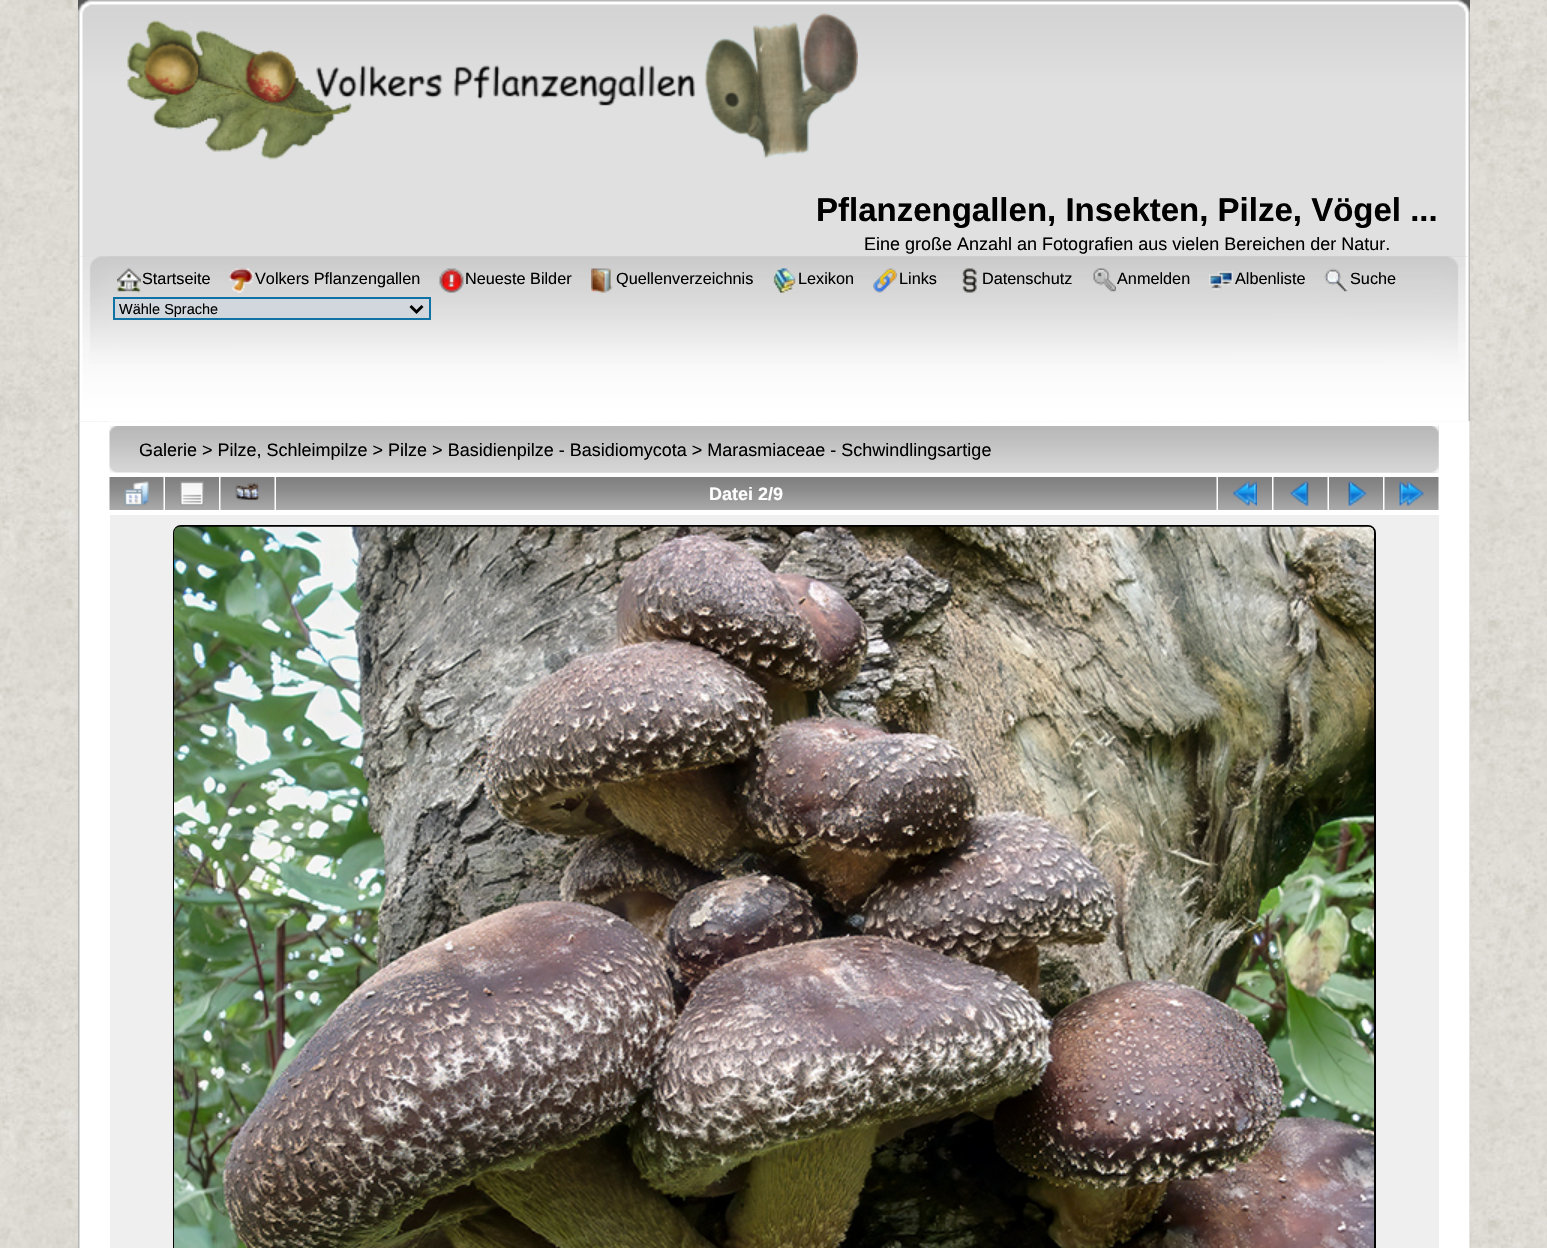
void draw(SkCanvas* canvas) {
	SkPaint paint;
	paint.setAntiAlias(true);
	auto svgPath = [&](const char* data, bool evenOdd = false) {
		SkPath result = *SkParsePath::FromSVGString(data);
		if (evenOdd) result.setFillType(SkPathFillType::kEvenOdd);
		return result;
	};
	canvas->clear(0xffffffff);
	canvas->drawImageRect(SkImages::DeferredFromEncodedData(SkData::MakeFromFileName("img1.png")), SkRect::MakeXYWH(0, 0, 1547, 1248), SkSamplingOptions());
	canvas->drawImageRect(SkImages::DeferredFromEncodedData(SkData::MakeFromFileName("img2.png")), SkRect::MakeXYWH(78, 0, 1392, 257), SkSamplingOptions());
	canvas->drawImageRect(SkImages::DeferredFromEncodedData(SkData::MakeFromFileName("img3.png")), SkRect::MakeXYWH(108, 0, 1362, 257), SkSamplingOptions());
	canvas->drawImageRect(SkImages::DeferredFromEncodedData(SkData::MakeFromFileName("img4.png")), SkRect::MakeXYWH(126, 13, 732, 147), SkSamplingOptions());
	SkFont f1(fontMgr->matchFamilyStyle("Liberation Sans", SkFontStyle::Bold()), 33);
	f1.setSubpixel(true);
	paint.setColor(0xff000000);
	canvas->drawString("Pflanzengallen, Insekten, Pilze, Vögel ...", 816, 221, f1, paint);
	SkFont f2(fontMgr->matchFamilyStyle("Liberation Sans", SkFontStyle::Normal()), 18);
	f2.setSubpixel(true);
	canvas->drawString("Eine große Anzahl an Fotografien aus vielen Bereichen der Natur.", 864, 250, f2, paint);
	canvas->drawImageRect(SkImages::DeferredFromEncodedData(SkData::MakeFromFileName("img5.png")), SkRect::MakeXYWH(78, 256, 1392, 166), SkSamplingOptions());
	canvas->drawImageRect(SkImages::DeferredFromEncodedData(SkData::MakeFromFileName("img6.png")), SkRect::MakeXYWH(108, 256, 1362, 166), SkSamplingOptions());
	canvas->drawImageRect(SkImages::DeferredFromEncodedData(SkData::MakeFromFileName("img7.png")), SkRect::MakeXYWH(117, 268, 24, 25), SkSamplingOptions());
	SkFont f3(fontMgr->matchFamilyStyle("Liberation Sans", SkFontStyle::Normal()), 16.25);
	f3.setSubpixel(true);
	canvas->drawString("Startseite", 142, 284, f3, paint);
	canvas->drawImageRect(SkImages::DeferredFromEncodedData(SkData::MakeFromFileName("img8.png")), SkRect::MakeXYWH(229, 268, 25, 25), SkSamplingOptions());
	canvas->drawString("Volkers Pflanzengallen", 255, 284, f3, paint);
	canvas->drawImageRect(SkImages::DeferredFromEncodedData(SkData::MakeFromFileName("img9.png")), SkRect::MakeXYWH(439, 268, 25, 25), SkSamplingOptions());
	canvas->drawString("Neueste Bilder", 465, 284, f3, paint);
	canvas->drawImageRect(SkImages::DeferredFromEncodedData(SkData::MakeFromFileName("img10.png")), SkRect::MakeXYWH(591, 268, 22, 25), SkSamplingOptions());
	canvas->drawString("Quellenverzeichnis", 616, 284, f3, paint);
	canvas->drawImageRect(SkImages::DeferredFromEncodedData(SkData::MakeFromFileName("img11.png")), SkRect::MakeXYWH(773, 268, 23, 25), SkSamplingOptions());
	canvas->drawString("Lexikon", 798, 284, f3, paint);
	canvas->drawImageRect(SkImages::DeferredFromEncodedData(SkData::MakeFromFileName("img12.png")), SkRect::MakeXYWH(873, 268, 24, 25), SkSamplingOptions());
	canvas->drawString("Links", 899, 284, f3, paint);
	canvas->drawImageRect(SkImages::DeferredFromEncodedData(SkData::MakeFromFileName("img13.png")), SkRect::MakeXYWH(962, 268, 15, 25), SkSamplingOptions());
	canvas->drawString("Datenschutz", 982, 284, f3, paint);
	canvas->drawImageRect(SkImages::DeferredFromEncodedData(SkData::MakeFromFileName("img14.png")), SkRect::MakeXYWH(1093, 268, 23, 24), SkSamplingOptions());
	canvas->drawString("Anmelden", 1117, 284, f3, paint);
	canvas->drawImageRect(SkImages::DeferredFromEncodedData(SkData::MakeFromFileName("img15.png")), SkRect::MakeXYWH(1209, 271, 24, 19), SkSamplingOptions());
	canvas->drawString("Albenliste", 1235, 284, f3, paint);
	canvas->drawImageRect(SkImages::DeferredFromEncodedData(SkData::MakeFromFileName("img16.png")), SkRect::MakeXYWH(1324, 268, 24, 24), SkSamplingOptions());
	canvas->drawString("Suche", 1350, 284, f3, paint);
	paint.setColor(0xffd1d7dc);
	canvas->drawRect(SkRect::MakeXYWH(114, 298, 316, 21), paint);
	paint.setStroke(true);
	paint.setStrokeWidth(2);
	paint.setColor(0xff0e72a4);
	canvas->drawRect(SkRect::MakeXYWH(114, 298, 316, 21), paint);
	paint.setStrokeWidth(3);
	paint.setColor(0xff000000);
	canvas->drawPath(svgPath("M410.5 306L416.5 312L422.5 306"), paint);
	SkFont f4(fontMgr->matchFamilyStyle("Liberation Sans", SkFontStyle::Normal()), 14.5);
	f4.setSubpixel(true);
	paint.setStroke(false);
	canvas->drawString("Wähle Sprache", 119, 314, f4, paint);
	canvas->drawImageRect(SkImages::DeferredFromEncodedData(SkData::MakeFromFileName("img17.png")), SkRect::MakeXYWH(78, 421, 1392, 827), SkSamplingOptions());
	canvas->drawImageRect(SkImages::DeferredFromEncodedData(SkData::MakeFromFileName("img18.png")), SkRect::MakeXYWH(1468, 421, 2, 827), SkSamplingOptions());
	canvas->drawImageRect(SkImages::DeferredFromEncodedData(SkData::MakeFromFileName("img19.png")), SkRect::MakeXYWH(109, 426, 1330, 47), SkSamplingOptions());
	canvas->drawImageRect(SkImages::DeferredFromEncodedData(SkData::MakeFromFileName("img20.png")), SkRect::MakeXYWH(139, 426, 1300, 47), SkSamplingOptions());
	canvas->drawString("Galerie > Pilze, Schleimpilze > Pilze > Basidienpilze - Basidiomycota > Marasmiaceae - Schwindlingsartige", 139, 456, f2, paint);
	canvas->drawImageRect(SkImages::DeferredFromEncodedData(SkData::MakeFromFileName("img21.png")), SkRect::MakeXYWH(109, 477, 55, 33), SkSamplingOptions());
	canvas->drawImageRect(SkImages::DeferredFromEncodedData(SkData::MakeFromFileName("img22.png")), SkRect::MakeXYWH(124, 481, 25, 25), SkSamplingOptions());
	canvas->drawImageRect(SkImages::DeferredFromEncodedData(SkData::MakeFromFileName("img23.png")), SkRect::MakeXYWH(165, 477, 54, 33), SkSamplingOptions());
	canvas->drawImageRect(SkImages::DeferredFromEncodedData(SkData::MakeFromFileName("img24.png")), SkRect::MakeXYWH(180, 481, 24, 25), SkSamplingOptions());
	canvas->drawImageRect(SkImages::DeferredFromEncodedData(SkData::MakeFromFileName("img21.png")), SkRect::MakeXYWH(220, 477, 55, 33), SkSamplingOptions());
	canvas->drawImageRect(SkImages::DeferredFromEncodedData(SkData::MakeFromFileName("img25.png")), SkRect::MakeXYWH(235, 482, 25, 19), SkSamplingOptions());
	canvas->drawImageRect(SkImages::DeferredFromEncodedData(SkData::MakeFromFileName("img26.png")), SkRect::MakeXYWH(276, 477, 941, 33), SkSamplingOptions());
	SkFont f5(fontMgr->matchFamilyStyle("Liberation Sans", SkFontStyle::Bold()), 18);
	f5.setSubpixel(true);
	paint.setColor(0xffffffff);
	canvas->drawString("Datei 2/9", 709, 500, f5, paint);
	canvas->drawImageRect(SkImages::DeferredFromEncodedData(SkData::MakeFromFileName("img23.png")), SkRect::MakeXYWH(1218, 477, 54, 33), SkSamplingOptions());
	canvas->drawImageRect(SkImages::DeferredFromEncodedData(SkData::MakeFromFileName("img27.png")), SkRect::MakeXYWH(1233, 481, 24, 25), SkSamplingOptions());
	canvas->drawImageRect(SkImages::DeferredFromEncodedData(SkData::MakeFromFileName("img21.png")), SkRect::MakeXYWH(1273, 477, 55, 33), SkSamplingOptions());
	canvas->drawImageRect(SkImages::DeferredFromEncodedData(SkData::MakeFromFileName("img28.png")), SkRect::MakeXYWH(1289, 481, 20, 25), SkSamplingOptions());
	canvas->drawImageRect(SkImages::DeferredFromEncodedData(SkData::MakeFromFileName("img23.png")), SkRect::MakeXYWH(1329, 477, 54, 33), SkSamplingOptions());
	canvas->drawImageRect(SkImages::DeferredFromEncodedData(SkData::MakeFromFileName("img29.png")), SkRect::MakeXYWH(1348, 481, 19, 25), SkSamplingOptions());
	canvas->drawImageRect(SkImages::DeferredFromEncodedData(SkData::MakeFromFileName("img21.png")), SkRect::MakeXYWH(1384, 477, 55, 33), SkSamplingOptions());
	canvas->drawImageRect(SkImages::DeferredFromEncodedData(SkData::MakeFromFileName("img30.png")), SkRect::MakeXYWH(1399, 481, 25, 25), SkSamplingOptions());
	paint.setColor(0xffefefef);
	canvas->drawRect(SkRect::MakeXYWH(110, 515, 1329, 733), paint);
	paint.setStroke(true);
	paint.setStrokeWidth(2);
	paint.setColor(0xff000000);
	canvas->drawRoundRect(SkRect::MakeXYWH(174, 526, 1201, 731), 7, 7, paint);
	canvas->drawImageRect(SkImages::DeferredFromEncodedData(SkData::MakeFromFileName("img31.png")), SkRect::MakeXYWH(174, 526, 1200, 722), SkSamplingOptions());
}
